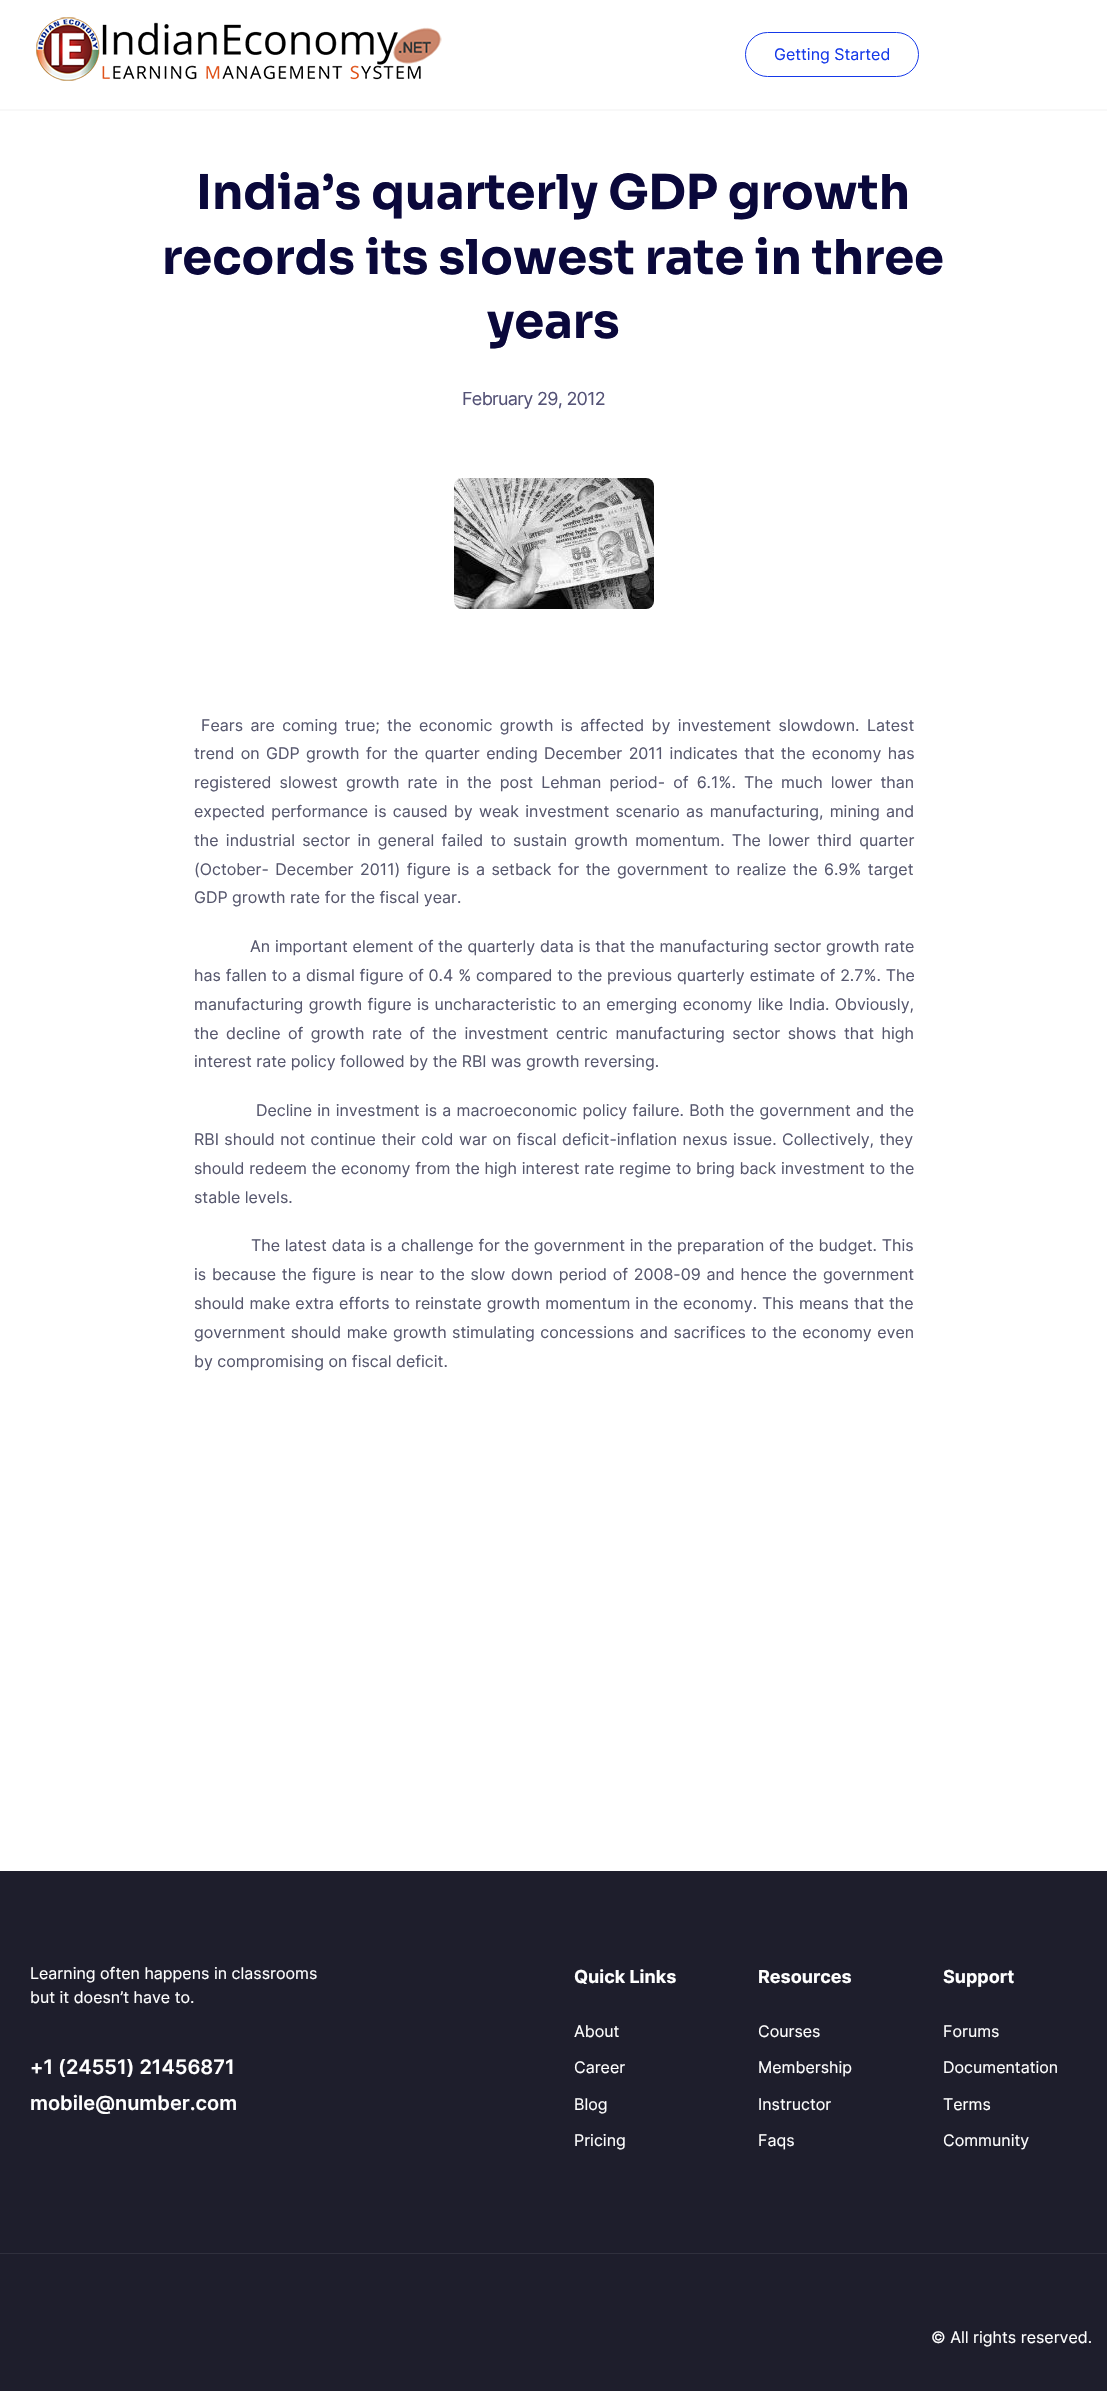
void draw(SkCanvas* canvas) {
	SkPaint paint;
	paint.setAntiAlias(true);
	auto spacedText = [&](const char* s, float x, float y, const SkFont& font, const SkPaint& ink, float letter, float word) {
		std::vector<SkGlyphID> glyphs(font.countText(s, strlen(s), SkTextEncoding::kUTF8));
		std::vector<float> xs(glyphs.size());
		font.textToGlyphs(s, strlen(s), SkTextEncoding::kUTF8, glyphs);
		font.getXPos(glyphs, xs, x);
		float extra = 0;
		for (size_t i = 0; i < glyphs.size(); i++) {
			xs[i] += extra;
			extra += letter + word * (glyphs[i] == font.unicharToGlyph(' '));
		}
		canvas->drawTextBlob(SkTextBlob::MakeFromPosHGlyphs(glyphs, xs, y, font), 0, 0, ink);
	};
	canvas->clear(0xffffffff);
	paint.setColor(0xfff8f8f8);
	canvas->drawRect(SkRect::MakeXYWH(0, 109, 1107, 2), paint);
	canvas->drawImageRect(SkImages::DeferredFromEncodedData(SkData::MakeFromFileName("img1.png")), SkRect::MakeXYWH(36, 17, 406, 64), SkSamplingOptions());
	paint.setStroke(true);
	paint.setStrokeWidth(1);
	paint.setColor(0xff1539e9);
	canvas->drawRoundRect(SkRect::MakeXYWH(745.5, 32.5, 173, 44), 22, 22, paint);
	SkFont f1(fontMgr->matchFamilyStyle("Inter", SkFontStyle::Normal()), 16);
	f1.setSubpixel(true);
	paint.setStroke(false);
	canvas->drawString("Getting Started", 774, 60, f1, paint);
	SkFont f2(fontMgr->matchFamilyStyle("Sora", SkFontStyle::Bold()), 48);
	f2.setSubpixel(true);
	paint.setColor(0xff0a083b);
	canvas->drawString("India’s quarterly GDP growth", 196, 209, f2, paint);
	canvas->drawString("records its slowest rate in three", 162, 274, f2, paint);
	canvas->drawString("years", 487, 338, f2, paint);
	SkFont f3(fontMgr->matchFamilyStyle("Inter", SkFontStyle::Normal()), 18);
	f3.setSubpixel(true);
	paint.setColor(0xff545276);
	spacedText("February 29, 2012", 462, 405, f3, paint, -0.7, 0);
	canvas->drawImageRect(SkImages::DeferredFromEncodedData(SkData::MakeFromFileName("img2.png")), SkRect::MakeXYWH(454, 478, 200, 131), SkSamplingOptions());
	paint.setColor(0xff57586e);
	spacedText("Fears are coming true; the economic growth is affected by investement slowdown. Latest", 201, 731, f1, paint, 0, 2.9);
	spacedText("trend on GDP growth for the quarter ending December 2011 indicates that the economy has", 194, 759, f1, paint, 0, 1.9);
	spacedText("registered slowest growth rate in the post Lehman period- of 6.1%. The much lower than", 194, 788, f1, paint, 0, 3.6);
	spacedText("expected performance is caused by weak investment scenario as manufacturing, mining and", 194, 817, f1, paint, 0, 1.75);
	spacedText("the industrial sector in general failed to sustain growth momentum. The lower third quarter", 194, 846, f1, paint, 0, 2.75);
	spacedText("(October- December 2011) figure is a setback for the government to realize the 6.9% target", 194, 875, f1, paint, 0, 2);
	canvas->drawString("GDP growth rate for the fiscal year.", 194, 903, f1, paint);
	spacedText("An important element of the quarterly data is that the manufacturing sector growth rate", 250, 952, f1, paint, 0, 0.2);
	spacedText("has fallen to a dismal figure of 0.4 % compared to the previous quarterly estimate of 2.7%. The", 194, 981, f1, paint, 0, 0.4);
	spacedText("manufacturing growth figure is uncharacteristic to an emerging economy like India. Obviously,", 194, 1010, f1, paint, 0, 0.9);
	spacedText("the decline of growth rate of the investment centric manufacturing sector shows that high", 194, 1039, f1, paint, 0, 3);
	canvas->drawString("interest rate policy followed by the RBI was growth reversing.", 194, 1067, f1, paint);
	spacedText("Decline in investment is a macroeconomic policy failure. Both the government and the", 256, 1116, f1, paint, 0, 0.75);
	spacedText("RBI should not continue their cold war on fiscal deficit-inflation nexus issue. Collectively, they", 194, 1145, f1, paint, 0, 1);
	spacedText("should redeem the economy from the high interest rate regime to bring back investment to the", 194, 1174, f1, paint, 0, 0.25);
	canvas->drawString("stable levels.", 194, 1203, f1, paint);
	spacedText("The latest data is a challenge for the government in the preparation of the budget. This", 251, 1251, f1, paint, 0, 0.25);
	spacedText("is because the figure is near to the slow down period of 2008-09 and hence the government", 194, 1280, f1, paint, 0, 1.25);
	spacedText("should make extra efforts to reinstate growth momentum in the economy. This means that the", 194, 1309, f1, paint, 0, 0.5);
	spacedText("government should make growth stimulating concessions and sacrifices to the economy even", 194, 1338, f1, paint, 0, 1);
	canvas->drawString("by compromising on fiscal deficit.", 194, 1367, f1, paint);
	paint.setColor(0xff1e1e2c);
	canvas->drawRect(SkRect::MakeXYWH(0, 1871, 1107, 520), paint);
	paint.setColor(0xff30303d);
	canvas->drawRect(SkRect::MakeXYWH(0, 2253, 1107, 1), paint);
	paint.setColor(0xffffffff);
	canvas->drawString("Learning often happens in classrooms", 30, 1979, f1, paint);
	canvas->drawString("but it doesn’t have to.", 30, 2003, f1, paint);
	SkFont f4(fontMgr->matchFamilyStyle("Inter", SkFontStyle(600, SkFontStyle::kNormal_Width, SkFontStyle::kUpright_Slant)), 20);
	f4.setSubpixel(true);
	canvas->drawString("+1 (24551) 21456871", 30, 2074, f4, paint);
	canvas->drawString("mobile@number.com", 30, 2110, f4, paint);
	SkFont f5(fontMgr->matchFamilyStyle("Inter", SkFontStyle::Bold()), 18);
	f5.setSubpixel(true);
	canvas->drawString("Quick Links", 574, 1983, f5, paint);
	canvas->drawString("About", 574, 2037, f1, paint);
	canvas->drawString("Career", 574, 2073, f1, paint);
	canvas->drawString("Blog", 574, 2110, f1, paint);
	canvas->drawString("Pricing", 574, 2146, f1, paint);
	canvas->drawString("Resources", 758, 1983, f5, paint);
	canvas->drawString("Courses", 758, 2037, f1, paint);
	canvas->drawString("Membership", 758, 2073, f1, paint);
	canvas->drawString("Instructor", 758, 2110, f1, paint);
	canvas->drawString("Faqs", 758, 2146, f1, paint);
	canvas->drawString("Support", 943, 1983, f5, paint);
	canvas->drawString("Forums", 943, 2037, f1, paint);
	canvas->drawString("Documentation", 943, 2073, f1, paint);
	canvas->drawString("Terms", 943, 2110, f1, paint);
	canvas->drawString("Community", 943, 2146, f1, paint);
	canvas->drawString("© All rights reserved.", 931, 2343, f1, paint);
}
